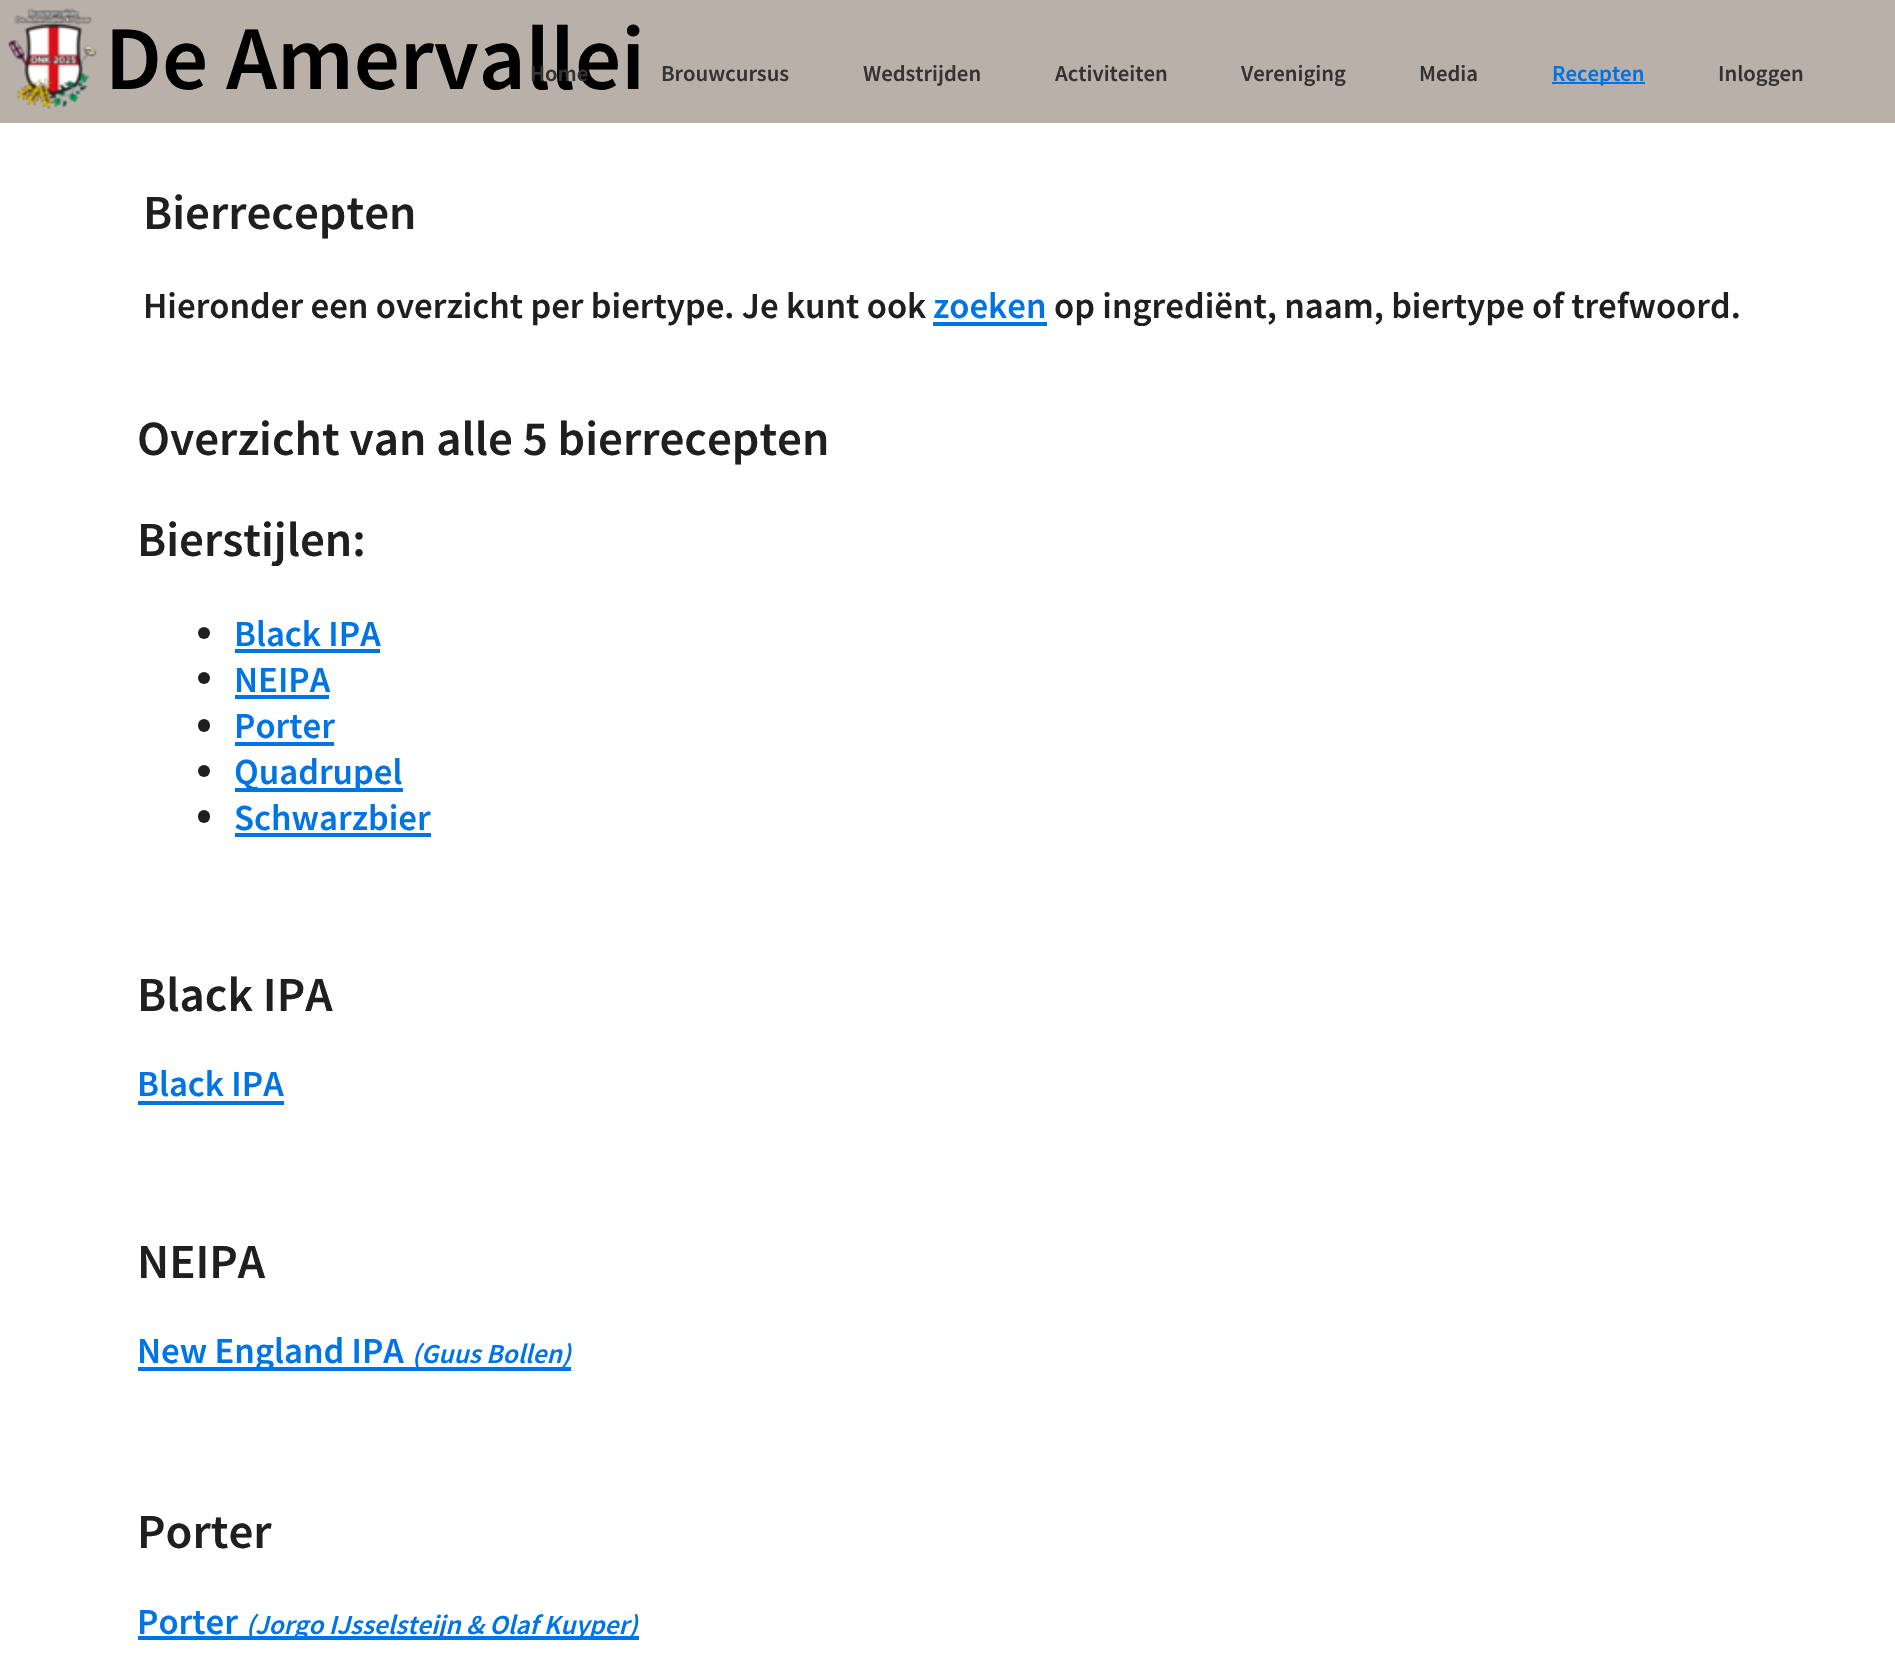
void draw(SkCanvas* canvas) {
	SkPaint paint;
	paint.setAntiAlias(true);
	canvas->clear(0xffffffff);
	paint.setColor(0xffb9b1a9);
	canvas->drawRect(SkRect::MakeXYWH(0, 0, 1895, 123), paint);
	canvas->drawImageRect(SkImages::DeferredFromEncodedData(SkData::MakeFromFileName("img1.png")), SkRect::MakeXYWH(8, 8, 89, 101), SkSamplingOptions());
	SkFont f1(fontMgr->matchFamilyStyle("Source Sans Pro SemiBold", SkFontStyle(600, SkFontStyle::kNormal_Width, SkFontStyle::kUpright_Slant)), 91);
	f1.setSubpixel(true);
	paint.setColor(0xff000000);
	canvas->drawString("De Amervallei", 105, 89, f1, paint);
	SkFont f2(fontMgr->matchFamilyStyle("Source Sans Pro SemiBold", SkFontStyle(600, SkFontStyle::kNormal_Width, SkFontStyle::kUpright_Slant)), 22.75);
	f2.setSubpixel(true);
	paint.setColor(0xff333333);
	canvas->drawString("Home", 530, 81, f2, paint);
	canvas->drawString("Brouwcursus", 661, 81, f2, paint);
	canvas->drawString("Wedstrijden", 863, 81, f2, paint);
	canvas->drawString("Activiteiten", 1055, 81, f2, paint);
	canvas->drawString("Vereniging", 1241, 81, f2, paint);
	canvas->drawString("Media", 1419, 81, f2, paint);
	paint.setColor(0xff0073e5);
	canvas->drawRect(SkRect::MakeXYWH(1552, 82, 93, 2), paint);
	canvas->drawString("Recepten", 1552, 81, f2, paint);
	paint.setColor(0xff333333);
	canvas->drawString("Inloggen", 1718, 81, f2, paint);
	SkFont f3(fontMgr->matchFamilyStyle("Source Sans Pro SemiBold", SkFontStyle(600, SkFontStyle::kNormal_Width, SkFontStyle::kUpright_Slant)), 49);
	f3.setSubpixel(true);
	paint.setColor(0xff1f1f1f);
	canvas->drawString("Bierrecepten", 143, 229, f3, paint);
	SkFont f4(fontMgr->matchFamilyStyle("Source Sans Pro SemiBold", SkFontStyle(600, SkFontStyle::kNormal_Width, SkFontStyle::kUpright_Slant)), 36.75);
	f4.setSubpixel(true);
	canvas->drawString("Hieronder een overzicht per biertype. Je kunt ook", 143, 318, f4, paint);
	paint.setColor(0xff0073e5);
	canvas->drawString("zoeken", 933, 318, f4, paint);
	canvas->drawRect(SkRect::MakeXYWH(933, 322, 114, 4), paint);
	paint.setColor(0xff1f1f1f);
	canvas->drawString("op ingrediënt, naam, biertype of trefwoord.", 1054, 318, f4, paint);
	canvas->drawString("Overzicht van alle 5 bierrecepten", 137, 455, f3, paint);
	canvas->drawString("Bierstijlen:", 137, 556, f3, paint);
	canvas->drawCircle(204, 633, 6, paint);
	paint.setColor(0xff0073e5);
	canvas->drawString("Black IPA", 234, 646, f4, paint);
	canvas->drawRect(SkRect::MakeXYWH(235, 649, 145, 4), paint);
	paint.setColor(0xff1f1f1f);
	canvas->drawCircle(204, 678, 6, paint);
	paint.setColor(0xff0073e5);
	canvas->drawString("NEIPA", 234, 692, f4, paint);
	canvas->drawRect(SkRect::MakeXYWH(235, 695, 94, 4), paint);
	paint.setColor(0xff1f1f1f);
	canvas->drawRoundRect(SkRect::MakeXYWH(198, 719, 12, 13), 6, 6, paint);
	paint.setColor(0xff0073e5);
	canvas->drawString("Porter", 234, 738, f4, paint);
	canvas->drawRect(SkRect::MakeXYWH(235, 742, 99, 4), paint);
	paint.setColor(0xff1f1f1f);
	canvas->drawCircle(204, 771, 6, paint);
	paint.setColor(0xff0073e5);
	canvas->drawRect(SkRect::MakeXYWH(235, 788, 168, 4), paint);
	canvas->drawString("Quadrupel", 234, 784, f4, paint);
	paint.setColor(0xff1f1f1f);
	canvas->drawRoundRect(SkRect::MakeXYWH(198, 810, 12, 13), 6, 6, paint);
	paint.setColor(0xff0073e5);
	canvas->drawString("Schwarzbier", 234, 830, f4, paint);
	canvas->drawRect(SkRect::MakeXYWH(235, 833, 196, 4), paint);
	paint.setColor(0xff1f1f1f);
	canvas->drawString("Black IPA", 137, 1011, f3, paint);
	paint.setColor(0xff0073e5);
	canvas->drawString("Black IPA", 137, 1096, f4, paint);
	canvas->drawRect(SkRect::MakeXYWH(138, 1101, 146, 4), paint);
	paint.setColor(0xff1f1f1f);
	canvas->drawString("NEIPA", 137, 1278, f3, paint);
	paint.setColor(0xff0073e5);
	canvas->drawRect(SkRect::MakeXYWH(138, 1367, 433, 4), paint);
	canvas->drawString("New England IPA", 137, 1363, f4, paint);
	SkFont f5(fontMgr->matchFamilyStyle("Source Sans Pro SemiBold", SkFontStyle(600, SkFontStyle::kNormal_Width, SkFontStyle::kItalic_Slant)), 27.5);
	f5.setSubpixel(true);
	canvas->drawString("(Guus Bollen)", 412, 1363, f5, paint);
	paint.setColor(0xff1f1f1f);
	canvas->drawString("Porter", 137, 1548, f3, paint);
	paint.setColor(0xff0073e5);
	canvas->drawString("Porter", 137, 1634, f4, paint);
	canvas->drawRect(SkRect::MakeXYWH(138, 1636, 501, 4), paint);
	canvas->drawString("(Jorgo IJsselsteijn & Olaf Kuyper)", 246, 1634, f5, paint);
}
